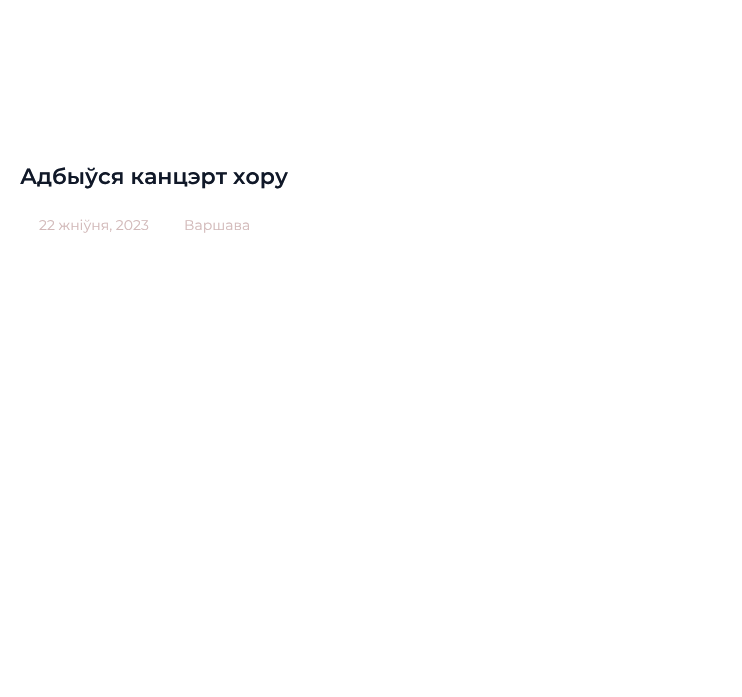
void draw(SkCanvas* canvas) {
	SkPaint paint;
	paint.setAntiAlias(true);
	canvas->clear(0xffffffff);
	SkFont f1(fontMgr->matchFamilyStyle("Montserrat", SkFontStyle(600, SkFontStyle::kNormal_Width, SkFontStyle::kUpright_Slant)), 22);
	f1.setSubpixel(true);
	paint.setColor(0xff101828);
	canvas->drawString("Адбыўся канцэрт хору", 20, 184, f1, paint);
	SkFont f2(fontMgr->matchFamilyStyle("Montserrat", SkFontStyle::Normal()), 14);
	f2.setSubpixel(true);
	paint.setColor(0xffd2b9b9);
	canvas->drawString("22 жніўня, 2023", 39, 230, f2, paint);
	canvas->drawString("Варшава", 184, 230, f2, paint);
}
